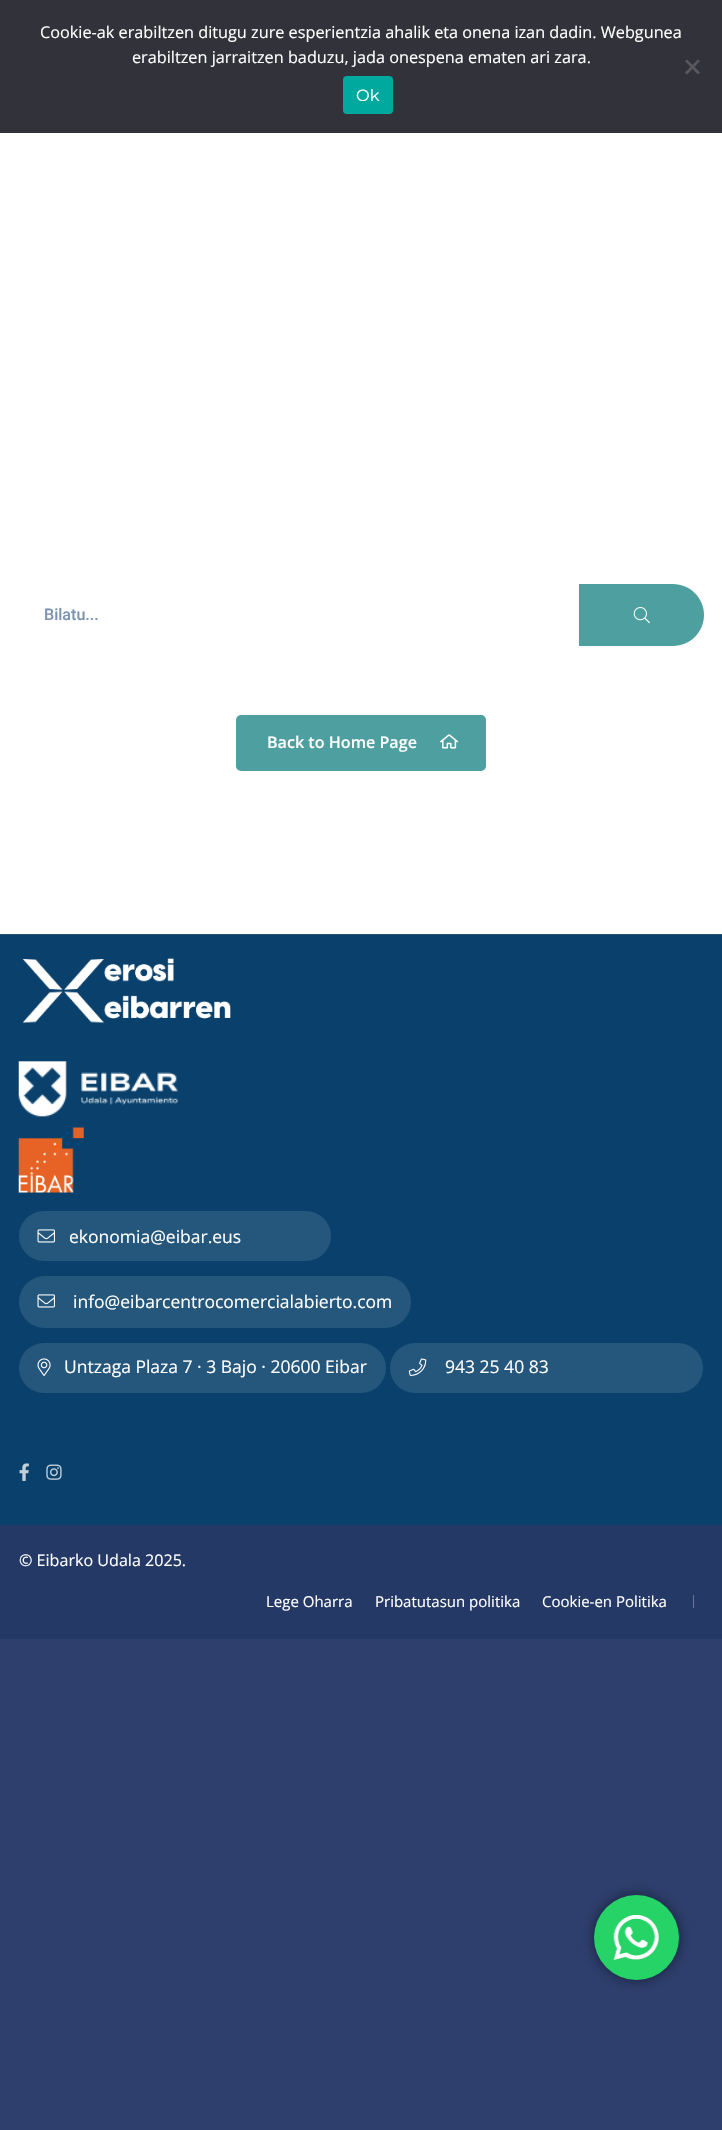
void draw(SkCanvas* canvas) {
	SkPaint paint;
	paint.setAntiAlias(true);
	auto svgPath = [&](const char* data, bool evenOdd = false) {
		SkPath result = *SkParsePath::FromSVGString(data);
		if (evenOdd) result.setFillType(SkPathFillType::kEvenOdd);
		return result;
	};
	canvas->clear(0xff2e3f6e);
	paint.setColor(0xff32323a);
	canvas->drawRect(SkRect::MakeXYWH(0, 0, 722, 133), paint);
	SkFont f1(fontMgr->matchFamilyStyle("Open Sans", SkFontStyle::Normal()), 16.25);
	f1.setSubpixel(true);
	paint.setColor(0xffffffff);
	canvas->drawString("Cookie-ak erabiltzen ditugu zure esperientzia ahalik eta onena izan dadin. Webgunea", 40, 38, f1, paint);
	canvas->drawString("erabiltzen jarraitzen baduzu, jada onespena ematen ari zara.", 132, 63, f1, paint);
	paint.setColor(0xff59595d);
	canvas->drawPath(svgPath("M698 59.5L700 61L687 74.5L685 72.5Z"), paint);
	canvas->drawPath(svgPath("M685 61L687 59.5L700 72.5L698 74.5Z"), paint);
	paint.setColor(0xff00a99d);
	canvas->drawRoundRect(SkRect::MakeXYWH(343, 76, 50, 38), 4, 4, paint);
	SkFont f2(fontMgr->matchFamilyStyle("Montserrat", SkFontStyle::Normal()), 16.25);
	f2.setSubpixel(true);
	paint.setColor(0xffffffff);
	canvas->drawString("Ok", 356, 101, f2, paint);
	canvas->drawRect(SkRect::MakeXYWH(0, 133, 722, 801), paint);
	SkFont f3(fontMgr->matchFamilyStyle("Roboto", SkFontStyle(500, SkFontStyle::kNormal_Width, SkFontStyle::kUpright_Slant)), 16.1);
	f3.setSubpixel(true);
	paint.setColor(0xff7d93b2);
	canvas->drawString("Bilatu...", 44, 620, f3, paint);
	paint.setColor(0xff4e9f9f);
	canvas->drawPath(svgPath("M579 584H673C690 584 704 598 704 615C704 632 690 646 673 646H579Z"), paint);
	canvas->drawImageRect(SkImages::DeferredFromEncodedData(SkData::MakeFromFileName("img1.png")), SkRect::MakeXYWH(633, 607, 17, 17), SkSamplingOptions());
	canvas->drawRoundRect(SkRect::MakeXYWH(236, 715, 250, 56), 5, 5, paint);
	SkFont f4(fontMgr->matchFamilyStyle("Open Sans", SkFontStyle(600, SkFontStyle::kNormal_Width, SkFontStyle::kUpright_Slant)), 16.1);
	f4.setSubpixel(true);
	paint.setColor(0xffffffff);
	canvas->drawString("Back to Home Page", 267, 748, f4, paint);
	canvas->drawImageRect(SkImages::DeferredFromEncodedData(SkData::MakeFromFileName("img2.png")), SkRect::MakeXYWH(440, 734, 19, 15), SkSamplingOptions());
	paint.setColor(0xff0a416c);
	canvas->drawRect(SkRect::MakeXYWH(0, 935, 722, 590), paint);
	paint.setColor(0xff23547b);
	canvas->drawRect(SkRect::MakeXYWH(0, 934, 722, 1), paint);
	canvas->drawImageRect(SkImages::DeferredFromEncodedData(SkData::MakeFromFileName("img3.png")), SkRect::MakeXYWH(22, 958, 209, 66), SkSamplingOptions());
	canvas->drawImageRect(SkImages::DeferredFromEncodedData(SkData::MakeFromFileName("img4.png")), SkRect::MakeXYWH(18, 1061, 160, 56), SkSamplingOptions());
	canvas->drawImageRect(SkImages::DeferredFromEncodedData(SkData::MakeFromFileName("img5.png")), SkRect::MakeXYWH(18, 1127, 66, 66), SkSamplingOptions());
	paint.setColor(0xff25567c);
	canvas->drawRoundRect(SkRect::MakeXYWH(19, 1211, 312, 50), 25, 25, paint);
	canvas->drawImageRect(SkImages::DeferredFromEncodedData(SkData::MakeFromFileName("img6.png")), SkRect::MakeXYWH(37, 1229, 18, 14), SkSamplingOptions());
	SkFont f5(fontMgr->matchFamilyStyle("Open Sans", SkFontStyle::Normal()), 17.5);
	f5.setSubpixel(true);
	paint.setColor(0xffffffff);
	canvas->drawString("ekonomia@eibar.eus", 69, 1243, f5, paint);
	paint.setColor(0xff25567c);
	canvas->drawRoundRect(SkRect::MakeXYWH(19, 1276, 392, 52), 26, 26, paint);
	canvas->drawImageRect(SkImages::DeferredFromEncodedData(SkData::MakeFromFileName("img6.png")), SkRect::MakeXYWH(37, 1294, 18, 14), SkSamplingOptions());
	paint.setColor(0xffffffff);
	canvas->drawString("info@eibarcentrocomercialabierto.com", 73, 1308, f5, paint);
	paint.setColor(0xff25567c);
	canvas->drawRoundRect(SkRect::MakeXYWH(19, 1343, 367, 50), 25, 25, paint);
	canvas->drawImageRect(SkImages::DeferredFromEncodedData(SkData::MakeFromFileName("img7.png")), SkRect::MakeXYWH(37, 1358, 14, 18), SkSamplingOptions());
	paint.setColor(0xffffffff);
	canvas->drawString("Untzaga Plaza 7 · 3 Bajo · 20600 Eibar", 64, 1373, f5, paint);
	paint.setColor(0xff25567c);
	canvas->drawRoundRect(SkRect::MakeXYWH(390, 1343, 313, 50), 25, 25, paint);
	canvas->drawImageRect(SkImages::DeferredFromEncodedData(SkData::MakeFromFileName("img8.png")), SkRect::MakeXYWH(408, 1358, 19, 18), SkSamplingOptions());
	paint.setColor(0xffffffff);
	canvas->drawString("943 25 40 83", 445, 1373, f5, paint);
	canvas->drawImageRect(SkImages::DeferredFromEncodedData(SkData::MakeFromFileName("img9.png")), SkRect::MakeXYWH(19, 1463, 10, 18), SkSamplingOptions());
	canvas->drawImageRect(SkImages::DeferredFromEncodedData(SkData::MakeFromFileName("img10.png")), SkRect::MakeXYWH(46, 1464, 16, 16), SkSamplingOptions());
	paint.setColor(0xff253966);
	canvas->drawRect(SkRect::MakeXYWH(0, 1525, 722, 114), paint);
	SkFont f6(fontMgr->matchFamilyStyle("Open Sans", SkFontStyle::Normal()), 16.1);
	f6.setSubpixel(true);
	paint.setColor(0xffffffff);
	canvas->drawString("© Eibarko Udala 2025.", 19, 1566, f6, paint);
	SkFont f7(fontMgr->matchFamilyStyle("Open Sans", SkFontStyle::Normal()), 15);
	f7.setSubpixel(true);
	canvas->drawString("Lege Oharra", 266, 1607, f7, paint);
	canvas->drawString("Pribatutasun politika", 375, 1607, f7, paint);
	canvas->drawString("Cookie-en Politika", 542, 1607, f7, paint);
	paint.setColor(0xff697695);
	canvas->drawRect(SkRect::MakeXYWH(693, 1595, 1, 13), paint);
	paint.setColor(0x80000000);
	paint.setMaskFilter(SkMaskFilter::MakeBlur(kNormal_SkBlurStyle, 7));
	canvas->drawRoundRect(SkRect::MakeXYWH(594, 1895, 85, 85), 42.5, 42.5, paint);
	paint.setMaskFilter(nullptr);
	paint.setColor(0xff25d366);
	canvas->drawCircle(636.5, 1937.5, 42.5, paint);
	canvas->drawImageRect(SkImages::DeferredFromEncodedData(SkData::MakeFromFileName("img11.png")), SkRect::MakeXYWH(613, 1915, 46, 45), SkSamplingOptions());
}
